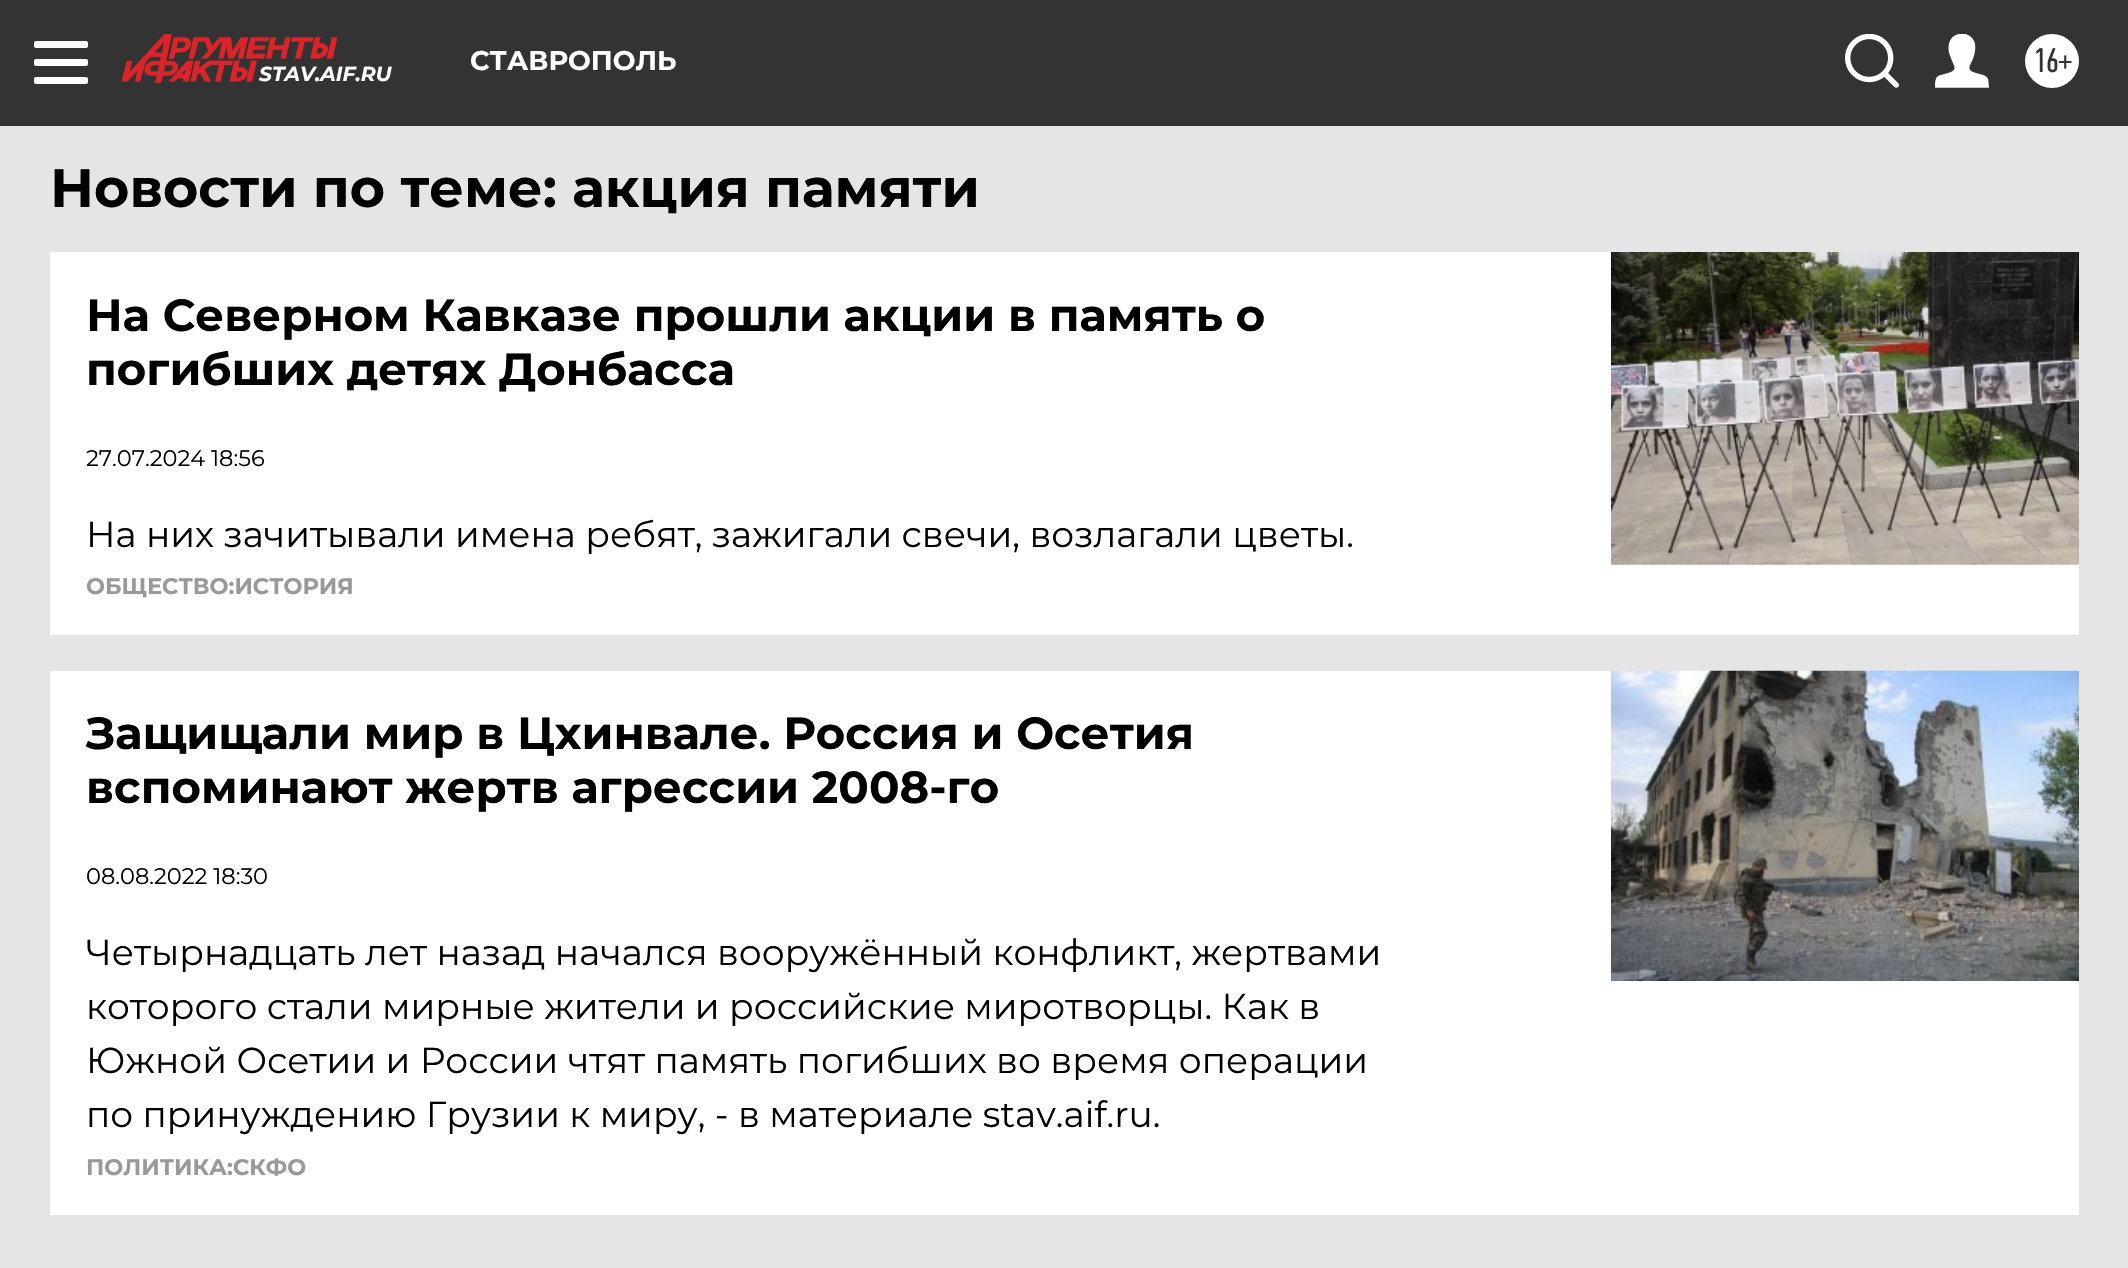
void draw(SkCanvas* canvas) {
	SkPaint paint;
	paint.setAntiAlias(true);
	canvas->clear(0xffe5e5e5);
	paint.setColor(0xff333333);
	canvas->drawRect(SkRect::MakeXYWH(0, 0, 2128, 126), paint);
	paint.setColor(0xffffffff);
	canvas->drawRoundRect(SkRect::MakeXYWH(34, 41, 54, 7), 2, 2, paint);
	canvas->drawRoundRect(SkRect::MakeXYWH(34, 59, 54, 7), 2, 2, paint);
	canvas->drawRoundRect(SkRect::MakeXYWH(34, 77, 54, 7), 2, 2, paint);
	SkFont f1(fontMgr->matchFamilyStyle("Montserrat", SkFontStyle::Bold()), 27);
	f1.setSubpixel(true);
	canvas->drawString("СТАВРОПОЛЬ", 470, 70, f1, paint);
	canvas->drawImageRect(SkImages::DeferredFromEncodedData(SkData::MakeFromFileName("img1.png")), SkRect::MakeXYWH(1845, 34, 54, 54), SkSamplingOptions());
	canvas->drawImageRect(SkImages::DeferredFromEncodedData(SkData::MakeFromFileName("img2.png")), SkRect::MakeXYWH(1935, 34, 54, 54), SkSamplingOptions());
	canvas->drawCircle(2052, 61, 27, paint);
	SkFont f2(fontMgr->matchFamilyStyle("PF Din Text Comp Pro", SkFontStyle::Normal()), 34);
	f2.setSubpixel(true);
	paint.setColor(0xff333333);
	canvas->drawString("16+", 2033, 72, f2, paint);
	canvas->drawImageRect(SkImages::DeferredFromEncodedData(SkData::MakeFromFileName("img3.png")), SkRect::MakeXYWH(122, 34, 216, 49), SkSamplingOptions());
	SkFont f3(fontMgr->matchFamilyStyle("Montserrat", SkFontStyle::BoldItalic()), 20.25);
	f3.setSubpixel(true);
	paint.setColor(0xffffffff);
	canvas->drawString("STAV.AIF.RU", 259, 81, f3, paint);
	SkFont f4(fontMgr->matchFamilyStyle("Montserrat", SkFontStyle::Bold()), 54);
	f4.setSubpixel(true);
	paint.setColor(0xff000000);
	canvas->drawString("Новости по теме: акция памяти", 50, 207, f4, paint);
	paint.setColor(0xffffffff);
	canvas->drawRect(SkRect::MakeXYWH(50, 252, 2029, 383), paint);
	SkFont f5(fontMgr->matchFamilyStyle("Montserrat", SkFontStyle::Bold()), 45);
	f5.setSubpixel(true);
	paint.setColor(0xff000000);
	canvas->drawString("На Северном Кавказе прошли акции в память о", 86, 331, f5, paint);
	canvas->drawString("погибших детях Донбасса", 86, 385, f5, paint);
	SkFont f6(fontMgr->matchFamilyStyle("Montserrat", SkFontStyle::Normal()), 22.5);
	f6.setSubpixel(true);
	canvas->drawString("27.07.2024 18:56", 86, 466, f6, paint);
	SkFont f7(fontMgr->matchFamilyStyle("Montserrat", SkFontStyle::Normal()), 36);
	f7.setSubpixel(true);
	canvas->drawString("На них зачитывали имена ребят, зажигали свечи, возлагали цветы.", 86, 547, f7, paint);
	canvas->drawImageRect(SkImages::DeferredFromEncodedData(SkData::MakeFromFileName("img4.png")), SkRect::MakeXYWH(1611, 252, 468, 313), SkSamplingOptions());
	SkFont f8(fontMgr->matchFamilyStyle("Montserrat", SkFontStyle::Bold()), 22.5);
	f8.setSubpixel(true);
	paint.setColor(0xff999999);
	canvas->drawString("ОБЩЕСТВО:ИСТОРИЯ", 86, 594, f8, paint);
	paint.setColor(0xffffffff);
	canvas->drawRect(SkRect::MakeXYWH(50, 671, 2029, 544), paint);
	paint.setColor(0xff000000);
	canvas->drawString("Защищали мир в Цхинвале. Россия и Осетия", 86, 749, f5, paint);
	canvas->drawString("вспоминают жертв агрессии 2008-го", 86, 803, f5, paint);
	canvas->drawString("08.08.2022 18:30", 86, 884, f6, paint);
	canvas->drawString("Четырнадцать лет назад начался вооружённый конфликт, жертвами", 86, 965, f7, paint);
	canvas->drawString("которого стали мирные жители и российские миротворцы. Как в", 86, 1019, f7, paint);
	canvas->drawString("Южной Осетии и России чтят память погибших во время операции", 86, 1073, f7, paint);
	canvas->drawString("по принуждению Грузии к миру, - в материале stav.aif.ru.", 86, 1127, f7, paint);
	canvas->drawImageRect(SkImages::DeferredFromEncodedData(SkData::MakeFromFileName("img5.png")), SkRect::MakeXYWH(1611, 670, 468, 311), SkSamplingOptions());
	paint.setColor(0xff999999);
	canvas->drawString("ПОЛИТИКА:СКФО", 86, 1175, f8, paint);
}
